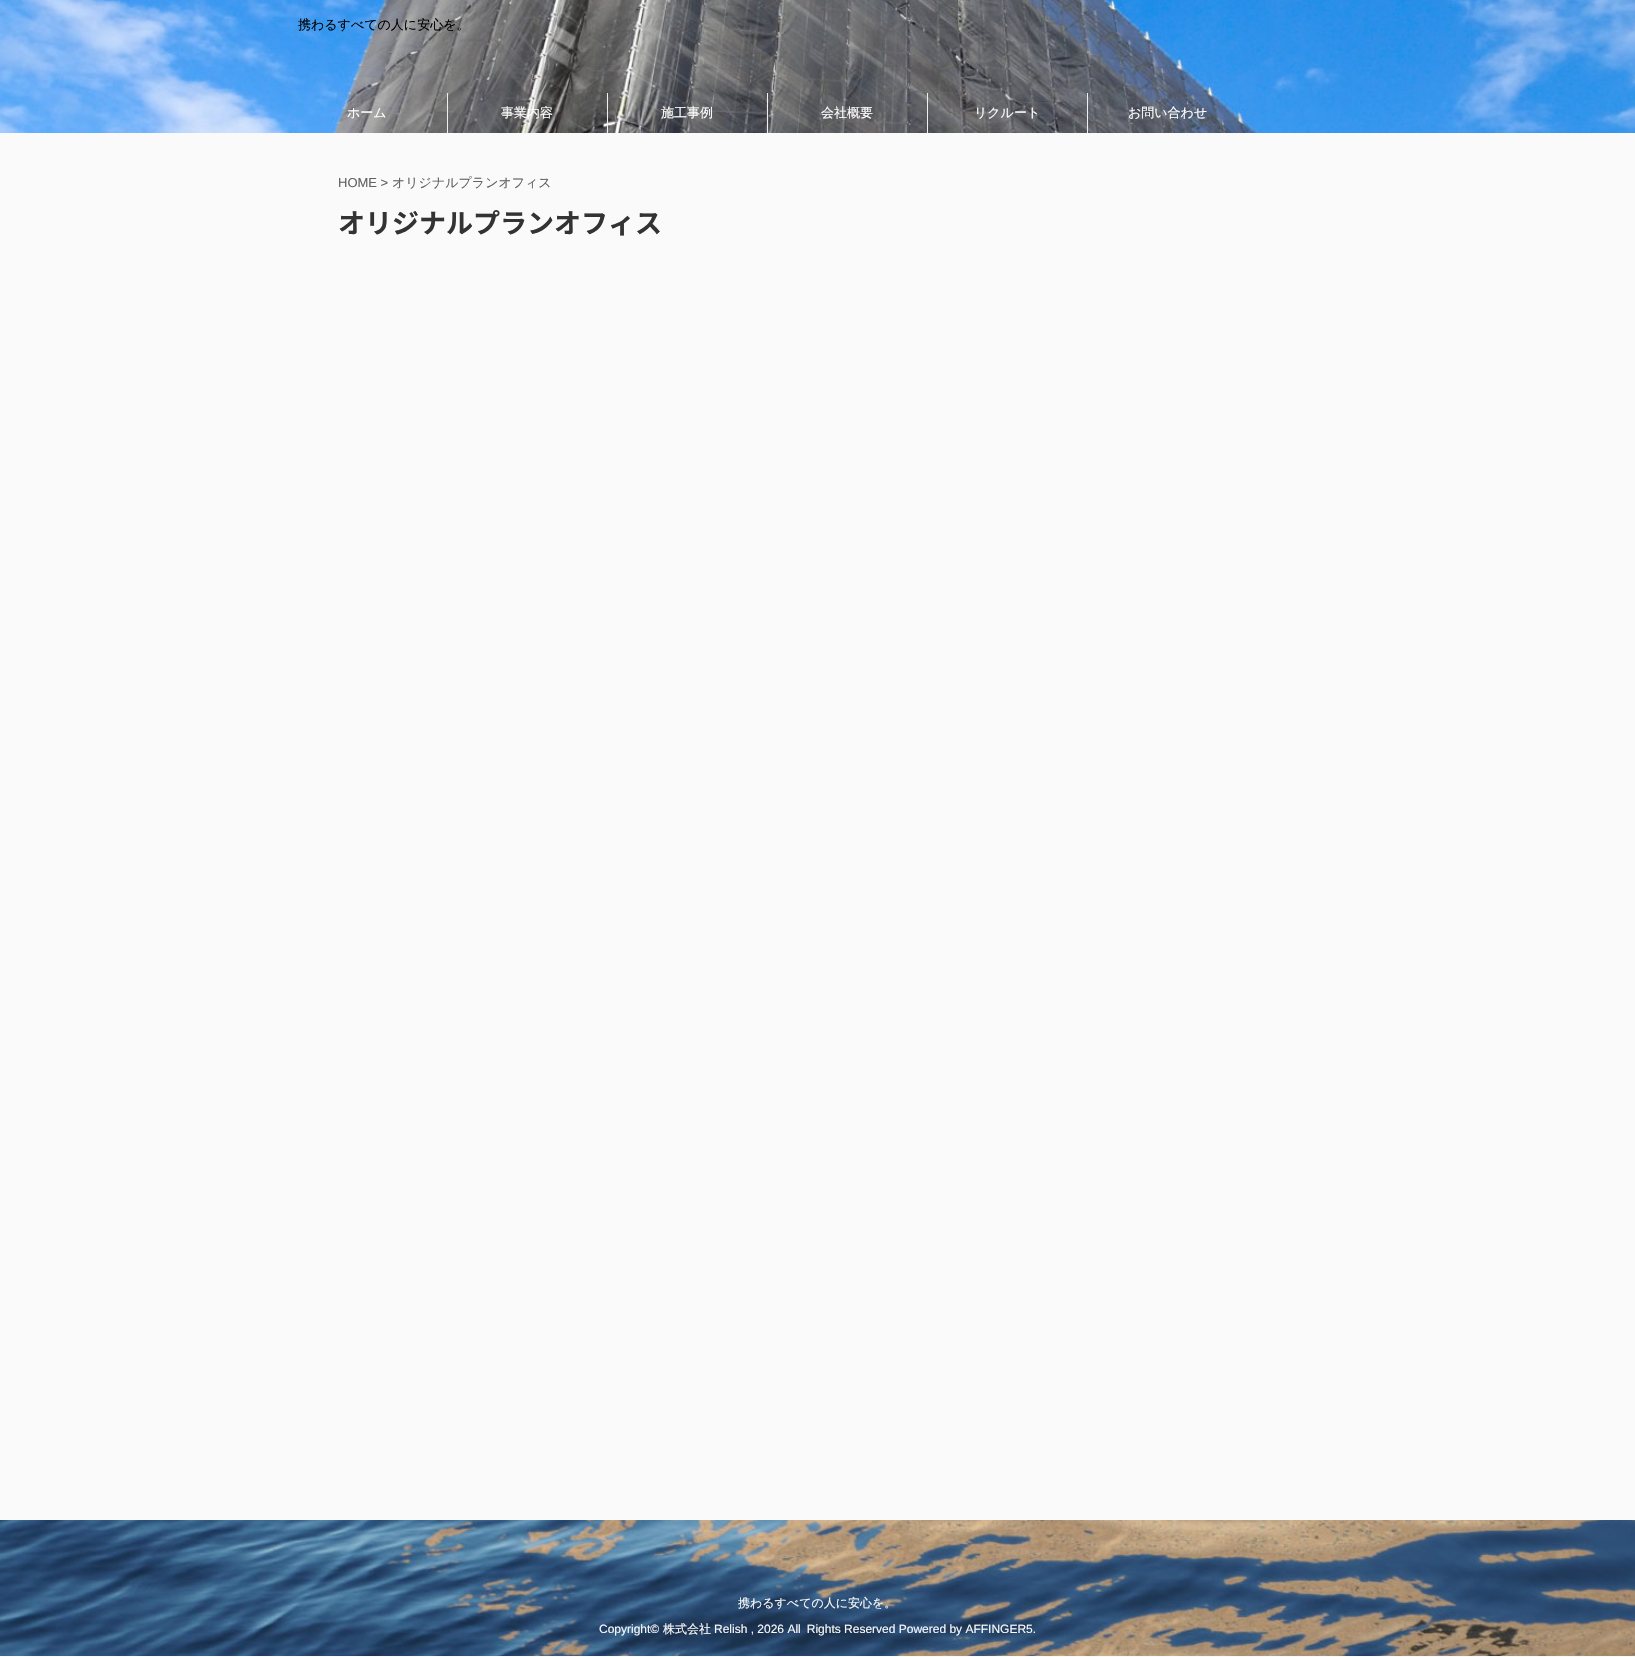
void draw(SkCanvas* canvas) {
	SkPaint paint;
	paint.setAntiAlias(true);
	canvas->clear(0xfffafafa);
	canvas->drawImageRect(SkImages::DeferredFromEncodedData(SkData::MakeFromFileName("img1.png")), SkRect::MakeXYWH(0, 0, 1635, 133), SkSamplingOptions());
	SkFont f1(fontMgr->matchFamilyStyle("WenQuanYi Zen Hei", SkFontStyle(500, SkFontStyle::kNormal_Width, SkFontStyle::kUpright_Slant)), 13);
	f1.setSubpixel(true);
	paint.setColor(0xff000000);
	canvas->drawString("携わるすべての人に安心を。", 298, 29, f1, paint);
	paint.setColor(0xffefefef);
	canvas->drawRect(SkRect::MakeXYWH(447, 93, 1, 40), paint);
	paint.setColor(0xffffffff);
	canvas->drawString("ホーム", 347, 117, f1, paint);
	paint.setColor(0xffefefef);
	canvas->drawRect(SkRect::MakeXYWH(607, 93, 1, 40), paint);
	paint.setColor(0xffffffff);
	canvas->drawString("事業内容", 501, 117, f1, paint);
	paint.setColor(0xffefefef);
	canvas->drawRect(SkRect::MakeXYWH(767, 93, 1, 40), paint);
	paint.setColor(0xffffffff);
	canvas->drawString("施工事例", 661, 117, f1, paint);
	paint.setColor(0xffefefef);
	canvas->drawRect(SkRect::MakeXYWH(927, 93, 1, 40), paint);
	paint.setColor(0xffffffff);
	canvas->drawString("会社概要", 821, 117, f1, paint);
	paint.setColor(0xffefefef);
	canvas->drawRect(SkRect::MakeXYWH(1087, 93, 1, 40), paint);
	paint.setColor(0xffffffff);
	canvas->drawString("リクルート", 974, 117, f1, paint);
	canvas->drawString("お問い合わせ", 1128, 117, f1, paint);
	SkFont f2(fontMgr->matchFamilyStyle("Liberation Sans", SkFontStyle::Normal()), 13);
	f2.setSubpixel(true);
	paint.setColor(0xff616161);
	canvas->drawString("HOME >", 338, 187, f2, paint);
	canvas->drawString("オリジナルプランオフィス", 392, 187, f1, paint);
	SkFont f3(fontMgr->matchFamilyStyle("Noto Sans JP", SkFontStyle::Bold()), 27);
	f3.setSubpixel(true);
	paint.setColor(0xff333333);
	canvas->drawString("オリジナルプランオフィス", 338, 233, f3, paint);
	canvas->drawImageRect(SkImages::DeferredFromEncodedData(SkData::MakeFromFileName("img2.png")), SkRect::MakeXYWH(0, 1520, 1635, 136), SkSamplingOptions());
	SkFont f4(fontMgr->matchFamilyStyle("WenQuanYi Zen Hei", SkFontStyle(500, SkFontStyle::kNormal_Width, SkFontStyle::kUpright_Slant)), 12);
	f4.setSubpixel(true);
	paint.setColor(0xfff9f9f9);
	canvas->drawString("携わるすべての人に安心を。", 738, 1607, f4, paint);
	SkFont f5(fontMgr->matchFamilyStyle("Liberation Sans", SkFontStyle::Normal()), 12);
	f5.setSubpixel(true);
	canvas->drawString("Copyright©", 599, 1633, f5, paint);
	canvas->drawString("株式会社", 663, 1633, f4, paint);
	canvas->drawString("Relish , 2026 All Rights Reserved Powered by AFFINGER5.", 714, 1633, f5, paint);
}
